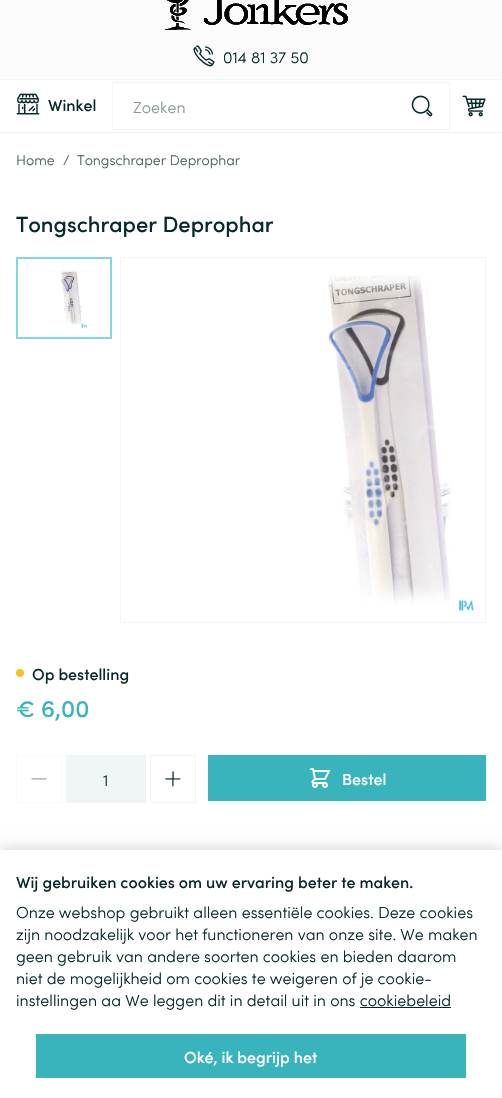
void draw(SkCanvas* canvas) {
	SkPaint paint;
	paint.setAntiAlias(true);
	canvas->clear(0xffffffff);
	paint.setColor(0xfffcfcfc);
	canvas->drawRect(SkRect::MakeXYWH(0, 0, 502, 79), paint);
	canvas->drawImageRect(SkImages::DeferredFromEncodedData(SkData::MakeFromFileName("img1.png")), SkRect::MakeXYWH(165, 0, 183, 30), SkSamplingOptions());
	canvas->drawImageRect(SkImages::DeferredFromEncodedData(SkData::MakeFromFileName("img2.png")), SkRect::MakeXYWH(193, 45, 22, 22), SkSamplingOptions());
	SkFont f1(fontMgr->matchFamilyStyle("Sofia", SkFontStyle(300, SkFontStyle::kNormal_Width, SkFontStyle::kUpright_Slant)), 16);
	f1.setSubpixel(true);
	paint.setColor(0xff06292c);
	canvas->drawString("014 81 37 50", 223, 63, f1, paint);
	paint.setColor(0xfff0f5f6);
	canvas->drawRect(SkRect::MakeXYWH(0, 79, 502, 1), paint);
	canvas->drawRect(SkRect::MakeXYWH(0, 132, 502, 1), paint);
	canvas->drawImageRect(SkImages::DeferredFromEncodedData(SkData::MakeFromFileName("img3.png")), SkRect::MakeXYWH(16, 93, 24, 22), SkSamplingOptions());
	SkFont f2(fontMgr->matchFamilyStyle("Sofia", SkFontStyle(500, SkFontStyle::kNormal_Width, SkFontStyle::kUpright_Slant)), 16);
	f2.setSubpixel(true);
	paint.setColor(0xff06292c);
	canvas->drawString("Winkel", 48, 111, f2, paint);
	paint.setStroke(true);
	paint.setStrokeWidth(1);
	paint.setColor(0xfff0f5f6);
	canvas->drawRect(SkRect::MakeXYWH(112.5, 82.5, 337, 47), paint);
	paint.setStroke(false);
	paint.setColor(0xff8a9697);
	canvas->drawString("Zoeken", 133, 113, f1, paint);
	canvas->drawImageRect(SkImages::DeferredFromEncodedData(SkData::MakeFromFileName("img4.png")), SkRect::MakeXYWH(411, 95, 22, 22), SkSamplingOptions());
	canvas->drawImageRect(SkImages::DeferredFromEncodedData(SkData::MakeFromFileName("img5.png")), SkRect::MakeXYWH(462, 95, 24, 22), SkSamplingOptions());
	SkFont f3(fontMgr->matchFamilyStyle("Sofia", SkFontStyle(300, SkFontStyle::kNormal_Width, SkFontStyle::kUpright_Slant)), 14);
	f3.setSubpixel(true);
	paint.setColor(0xff4d5f60);
	canvas->drawString("Home", 16, 165, f3, paint);
	canvas->drawString("/", 63, 165, f3, paint);
	canvas->drawString("Tongschraper Deprophar", 77, 165, f3, paint);
	SkFont f4(fontMgr->matchFamilyStyle("Sofia", SkFontStyle(500, SkFontStyle::kNormal_Width, SkFontStyle::kUpright_Slant)), 22);
	f4.setSubpixel(true);
	paint.setColor(0xff06292c);
	canvas->drawString("Tongschraper Deprophar", 16, 232, f4, paint);
	paint.setStroke(true);
	paint.setStrokeWidth(2);
	paint.setColor(0xff7fd9dd);
	canvas->drawRect(SkRect::MakeXYWH(17, 258, 94, 80), paint);
	canvas->drawImageRect(SkImages::DeferredFromEncodedData(SkData::MakeFromFileName("img6.png")), SkRect::MakeXYWH(61, 270, 26, 59), SkSamplingOptions());
	paint.setStrokeWidth(1);
	paint.setColor(0xfff0f5f6);
	canvas->drawRect(SkRect::MakeXYWH(120.5, 257.5, 365, 365), paint);
	canvas->drawImageRect(SkImages::DeferredFromEncodedData(SkData::MakeFromFileName("img7.png")), SkRect::MakeXYWH(327, 275, 149, 338), SkSamplingOptions());
	paint.setStroke(false);
	paint.setColor(0xfffbbf24);
	canvas->drawCircle(20, 673, 4, paint);
	paint.setColor(0xff06292c);
	canvas->drawString("Op bestelling", 32, 680, f2, paint);
	SkFont f5(fontMgr->matchFamilyStyle("Sofia", SkFontStyle(500, SkFontStyle::kNormal_Width, SkFontStyle::kUpright_Slant)), 24);
	f5.setSubpixel(true);
	paint.setColor(0xff39b4bc);
	canvas->drawString("€ 6,00", 16, 717, f5, paint);
	paint.setStroke(true);
	paint.setColor(0xfff9fbfb);
	canvas->drawRect(SkRect::MakeXYWH(16.5, 755.5, 45, 47), paint);
	canvas->drawImageRect(SkImages::DeferredFromEncodedData(SkData::MakeFromFileName("img8.png")), SkRect::MakeXYWH(31, 778, 16, 2), SkSamplingOptions());
	paint.setStroke(false);
	paint.setColor(0xfff0f5f6);
	canvas->drawRect(SkRect::MakeXYWH(66, 755, 80, 48), paint);
	paint.setColor(0xff06292c);
	canvas->drawString("1", 103, 786, f1, paint);
	paint.setStroke(true);
	paint.setColor(0xfff0f5f6);
	canvas->drawRect(SkRect::MakeXYWH(150.5, 755.5, 45, 47), paint);
	canvas->drawImageRect(SkImages::DeferredFromEncodedData(SkData::MakeFromFileName("img9.png")), SkRect::MakeXYWH(165, 771, 16, 16), SkSamplingOptions());
	paint.setStroke(false);
	paint.setColor(0xff39b4bc);
	canvas->drawRect(SkRect::MakeXYWH(208, 755, 278, 46), paint);
	canvas->drawImageRect(SkImages::DeferredFromEncodedData(SkData::MakeFromFileName("img10.png")), SkRect::MakeXYWH(310, 768, 20, 20), SkSamplingOptions());
	paint.setColor(0xffffffff);
	canvas->drawString("Bestel", 342, 785, f2, paint);
	paint.setColor(0x33000000);
	paint.setMaskFilter(SkMaskFilter::MakeBlur(kNormal_SkBlurStyle, 7.5));
	canvas->drawRect(SkRect::MakeXYWH(0, 850, 502, 248), paint);
	paint.setMaskFilter(nullptr);
	paint.setColor(0xffffffff);
	canvas->drawRect(SkRect::MakeXYWH(0, 850, 502, 248), paint);
	paint.setColor(0xff06292c);
	canvas->drawString("Wij gebruiken cookies om uw ervaring beter te maken.", 16, 888, f2, paint);
	canvas->drawString("Onze webshop gebruikt alleen essentiële cookies. Deze cookies", 16, 918, f1, paint);
	canvas->drawString("zijn noodzakelijk voor het functioneren van onze site. We maken", 16, 940, f1, paint);
	canvas->drawString("geen gebruik van andere soorten cookies en bieden daarom", 16, 962, f1, paint);
	canvas->drawString("niet de mogelijkheid om cookies te weigeren of je cookie-", 16, 984, f1, paint);
	canvas->drawString("instellingen aa We leggen dit in detail uit in ons cookiebeleid", 16, 1006, f1, paint);
	canvas->drawRect(SkRect::MakeXYWH(360, 1007, 91, 1), paint);
	paint.setColor(0xff39b4bc);
	canvas->drawRect(SkRect::MakeXYWH(36, 1034, 430, 44), paint);
	paint.setColor(0xffffffff);
	canvas->drawString("Oké, ik begrijp het", 184, 1063, f2, paint);
}
